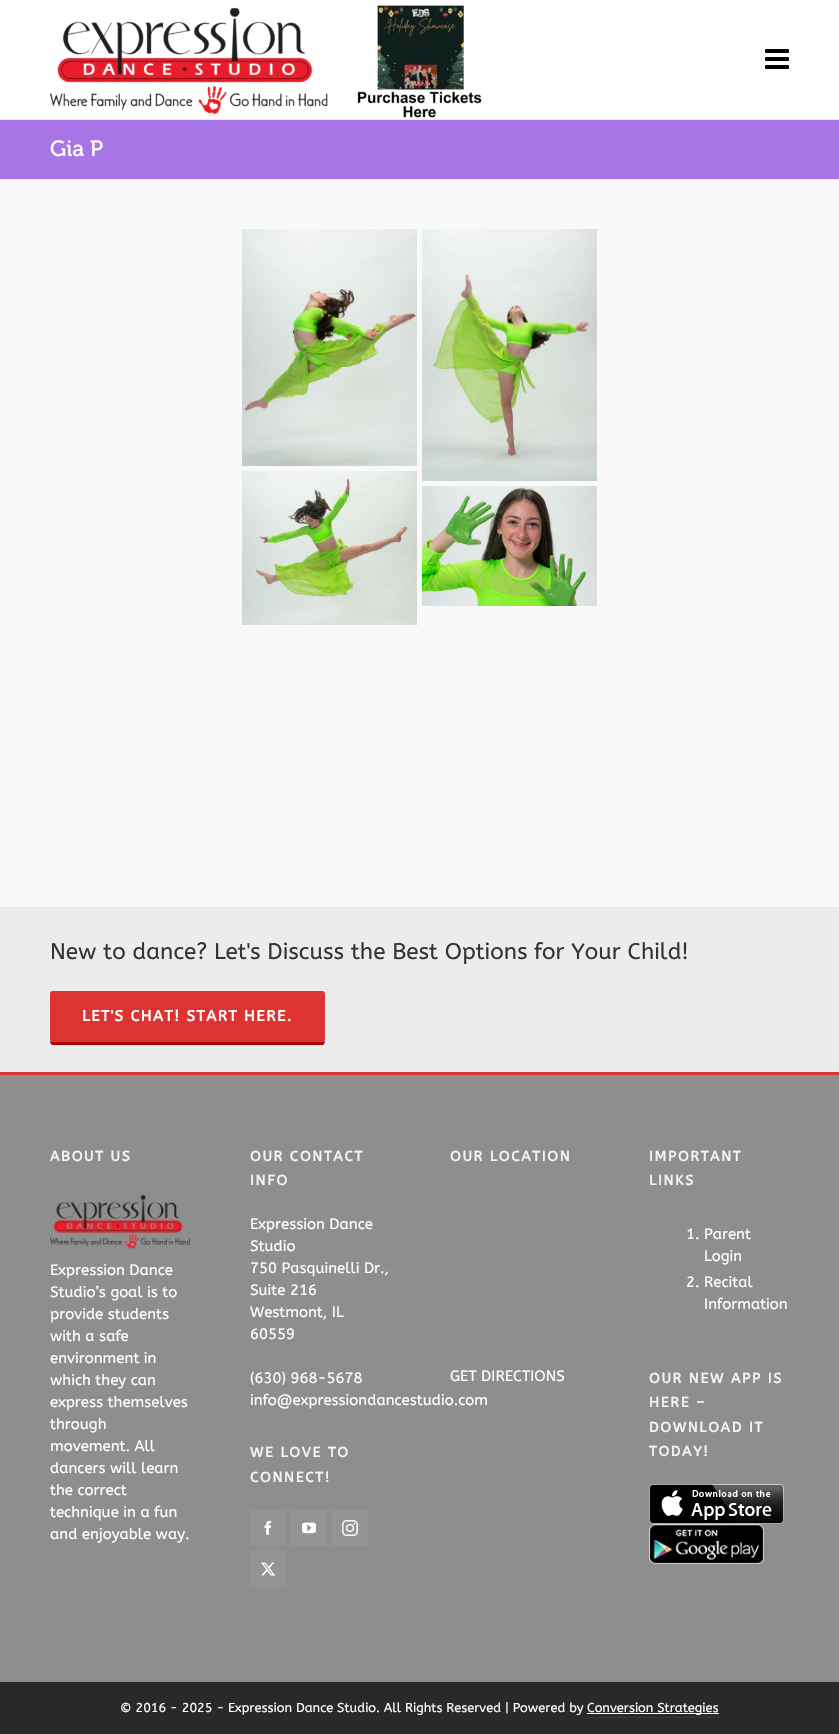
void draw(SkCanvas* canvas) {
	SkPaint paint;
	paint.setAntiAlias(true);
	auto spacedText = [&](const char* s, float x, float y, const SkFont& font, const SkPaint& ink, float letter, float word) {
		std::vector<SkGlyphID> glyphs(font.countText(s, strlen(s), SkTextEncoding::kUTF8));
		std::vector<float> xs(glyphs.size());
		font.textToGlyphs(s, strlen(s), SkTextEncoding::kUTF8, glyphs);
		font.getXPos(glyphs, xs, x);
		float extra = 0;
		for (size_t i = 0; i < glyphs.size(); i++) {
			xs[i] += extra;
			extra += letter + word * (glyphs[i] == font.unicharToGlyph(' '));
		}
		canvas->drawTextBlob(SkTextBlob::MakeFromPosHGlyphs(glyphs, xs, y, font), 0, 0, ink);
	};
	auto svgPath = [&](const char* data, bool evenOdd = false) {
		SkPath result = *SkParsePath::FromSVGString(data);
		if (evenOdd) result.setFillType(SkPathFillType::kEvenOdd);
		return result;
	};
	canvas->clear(0xfff9f9f9);
	paint.setColor(0xffffffff);
	canvas->drawRect(SkRect::MakeXYWH(0, 0, 839, 119), paint);
	paint.setColor(0xffebebeb);
	canvas->drawRect(SkRect::MakeXYWH(0, 119, 839, 1), paint);
	canvas->drawImageRect(SkImages::DeferredFromEncodedData(SkData::MakeFromFileName("img1.png")), SkRect::MakeXYWH(50, 5, 432, 113), SkSamplingOptions());
	canvas->drawImageRect(SkImages::DeferredFromEncodedData(SkData::MakeFromFileName("img2.png")), SkRect::MakeXYWH(765, 49, 24, 20), SkSamplingOptions());
	canvas->drawRect(SkRect::MakeXYWH(0, 179, 839, 1), paint);
	paint.setColor(0xffa875e6);
	canvas->drawRect(SkRect::MakeXYWH(0, 120, 839, 59), paint);
	SkFont f1(fontMgr->matchFamilyStyle("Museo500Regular", SkFontStyle::Normal()), 22);
	f1.setSubpixel(true);
	paint.setColor(0xffffffff);
	canvas->drawString("Gia P", 50, 156, f1, paint);
	canvas->drawImageRect(SkImages::DeferredFromEncodedData(SkData::MakeFromFileName("img3.png")), SkRect::MakeXYWH(242, 229, 175, 237), SkSamplingOptions());
	canvas->drawImageRect(SkImages::DeferredFromEncodedData(SkData::MakeFromFileName("img4.png")), SkRect::MakeXYWH(422, 229, 175, 252), SkSamplingOptions());
	canvas->drawImageRect(SkImages::DeferredFromEncodedData(SkData::MakeFromFileName("img5.png")), SkRect::MakeXYWH(242, 471, 175, 154), SkSamplingOptions());
	canvas->drawImageRect(SkImages::DeferredFromEncodedData(SkData::MakeFromFileName("img6.png")), SkRect::MakeXYWH(422, 486, 175, 120), SkSamplingOptions());
	paint.setColor(0xffececec);
	canvas->drawRect(SkRect::MakeXYWH(0, 907, 839, 165), paint);
	paint.setColor(0xffdd3333);
	canvas->drawRect(SkRect::MakeXYWH(0, 1072, 839, 3), paint);
	SkFont f2(fontMgr->matchFamilyStyle("ABeeZee", SkFontStyle::Normal()), 22.5);
	f2.setSubpixel(true);
	paint.setColor(0xff323436);
	canvas->drawString("New to dance? Let's Discuss the Best Options for Your Child!", 50, 959, f2, paint);
	paint.setColor(0xffab0101);
	canvas->drawPath(svgPath("M50 1039C50 1041 50 1045 53 1045H323C325 1044 325 1041 325 1039C325 1041 324 1042 322 1042H53C51 1042 50 1041 50 1039Z"), paint);
	paint.setColor(0xffdd3333);
	canvas->drawRoundRect(SkRect::MakeXYWH(50, 991, 275, 51), 3, 3, paint);
	SkFont f3(fontMgr->matchFamilyStyle("ABeeZee", SkFontStyle::Bold()), 15);
	f3.setSubpixel(true);
	paint.setColor(0xffffffff);
	spacedText("LET'S CHAT! START HERE.", 82, 1021, f3, paint, 1.5, 0);
	paint.setColor(0xff8e8e8e);
	canvas->drawRect(SkRect::MakeXYWH(0, 1075, 839, 607), paint);
	SkFont f4(fontMgr->matchFamilyStyle("ABeeZee", SkFontStyle::Bold()), 14);
	f4.setSubpixel(true);
	paint.setColor(0xfff4f4f4);
	spacedText("ABOUT US", 50, 1161, f4, paint, 1.75, 0);
	canvas->drawImageRect(SkImages::DeferredFromEncodedData(SkData::MakeFromFileName("img7.png")), SkRect::MakeXYWH(50, 1195, 140, 54), SkSamplingOptions());
	SkFont f5(fontMgr->matchFamilyStyle("ABeeZee", SkFontStyle::Normal()), 15);
	f5.setSubpixel(true);
	paint.setColor(0xffffffff);
	canvas->drawString("Expression Dance", 50, 1275, f5, paint);
	canvas->drawString("Studio’s goal is to", 50, 1297, f5, paint);
	canvas->drawString("provide students", 50, 1319, f5, paint);
	canvas->drawString("with a safe", 50, 1341, f5, paint);
	canvas->drawString("environment in", 50, 1363, f5, paint);
	canvas->drawString("which they can", 50, 1385, f5, paint);
	canvas->drawString("express themselves", 50, 1407, f5, paint);
	canvas->drawString("through", 50, 1429, f5, paint);
	canvas->drawString("movement. All", 50, 1451, f5, paint);
	canvas->drawString("dancers will learn", 50, 1473, f5, paint);
	canvas->drawString("the correct", 50, 1495, f5, paint);
	canvas->drawString("technique in a fun", 50, 1517, f5, paint);
	canvas->drawString("and enjoyable way.", 50, 1539, f5, paint);
	paint.setColor(0xfff4f4f4);
	spacedText("OUR CONTACT", 250, 1161, f4, paint, 1.75, 0);
	spacedText("INFO", 250, 1185, f4, paint, 1.75, 0);
	paint.setColor(0xffffffff);
	canvas->drawString("Expression Dance", 250, 1229, f5, paint);
	canvas->drawString("Studio", 250, 1251, f5, paint);
	canvas->drawString("750 Pasquinelli Dr.,", 250, 1273, f5, paint);
	canvas->drawString("Suite 216", 250, 1295, f5, paint);
	canvas->drawString("Westmont, IL", 250, 1317, f5, paint);
	canvas->drawString("60559", 250, 1339, f5, paint);
	canvas->drawString("(630) 968-5678", 250, 1383, f5, paint);
	canvas->drawString("info@expressiondancestudio.com", 250, 1405, f5, paint);
	paint.setColor(0xfff4f4f4);
	spacedText("WE LOVE TO", 250, 1457, f4, paint, 1.75, 0);
	spacedText("CONNECT!", 250, 1482, f4, paint, 1.75, 0);
	paint.setColor(0xff949494);
	canvas->drawRect(SkRect::MakeXYWH(250, 1510, 36, 36), paint);
	canvas->drawImageRect(SkImages::DeferredFromEncodedData(SkData::MakeFromFileName("img8.png")), SkRect::MakeXYWH(264, 1520, 7, 15), SkSamplingOptions());
	canvas->drawRect(SkRect::MakeXYWH(291, 1510, 36, 36), paint);
	canvas->drawImageRect(SkImages::DeferredFromEncodedData(SkData::MakeFromFileName("img9.png")), SkRect::MakeXYWH(302, 1522, 14, 12), SkSamplingOptions());
	canvas->drawRect(SkRect::MakeXYWH(332, 1510, 36, 36), paint);
	canvas->drawImageRect(SkImages::DeferredFromEncodedData(SkData::MakeFromFileName("img10.png")), SkRect::MakeXYWH(342, 1520, 16, 16), SkSamplingOptions());
	canvas->drawRect(SkRect::MakeXYWH(250, 1551, 36, 36), paint);
	canvas->drawImageRect(SkImages::DeferredFromEncodedData(SkData::MakeFromFileName("img11.png")), SkRect::MakeXYWH(261, 1562, 15, 14), SkSamplingOptions());
	paint.setColor(0xfff4f4f4);
	spacedText("OUR LOCATION", 450, 1161, f4, paint, 1.75, 0);
	paint.setColor(0xffffffff);
	canvas->drawString("GET DIRECTIONS", 450, 1381, f5, paint);
	paint.setColor(0xfff4f4f4);
	spacedText("IMPORTANT", 649, 1161, f4, paint, 1.75, 0);
	spacedText("LINKS", 649, 1185, f4, paint, 1.75, 0);
	paint.setColor(0xffffffff);
	canvas->drawString("1. Parent", 686, 1239, f5, paint);
	canvas->drawString("Login", 704, 1261, f5, paint);
	canvas->drawString("2. Recital", 686, 1287, f5, paint);
	canvas->drawString("Information", 704, 1309, f5, paint);
	paint.setColor(0xfff4f4f4);
	spacedText("OUR NEW APP IS", 649, 1383, f4, paint, 1.75, 0);
	spacedText("HERE –", 649, 1407, f4, paint, 1.75, 0);
	spacedText("DOWNLOAD IT", 649, 1432, f4, paint, 1.75, 0);
	spacedText("TODAY!", 649, 1456, f4, paint, 1.75, 0);
	canvas->drawImageRect(SkImages::DeferredFromEncodedData(SkData::MakeFromFileName("img12.png")), SkRect::MakeXYWH(649, 1484, 135, 40), SkSamplingOptions());
	canvas->drawImageRect(SkImages::DeferredFromEncodedData(SkData::MakeFromFileName("img13.png")), SkRect::MakeXYWH(649, 1524, 115, 40), SkSamplingOptions());
	paint.setColor(0xff292929);
	canvas->drawRect(SkRect::MakeXYWH(0, 1682, 839, 52), paint);
	SkFont f6(fontMgr->matchFamilyStyle("ABeeZee", SkFontStyle::Normal()), 12.85);
	f6.setSubpixel(true);
	paint.setColor(0xffffffff);
	canvas->drawString("© 2016 - 2025 - Expression Dance Studio. All Rights Reserved | Powered by", 120, 1712, f6, paint);
	canvas->drawRect(SkRect::MakeXYWH(587, 1713, 132, 1), paint);
	canvas->drawString("Conversion Strategies", 587, 1712, f6, paint);
	paint.setColor(0xff383838);
	canvas->drawRect(SkRect::MakeXYWH(587, 1717, 132, 1), paint);
}
